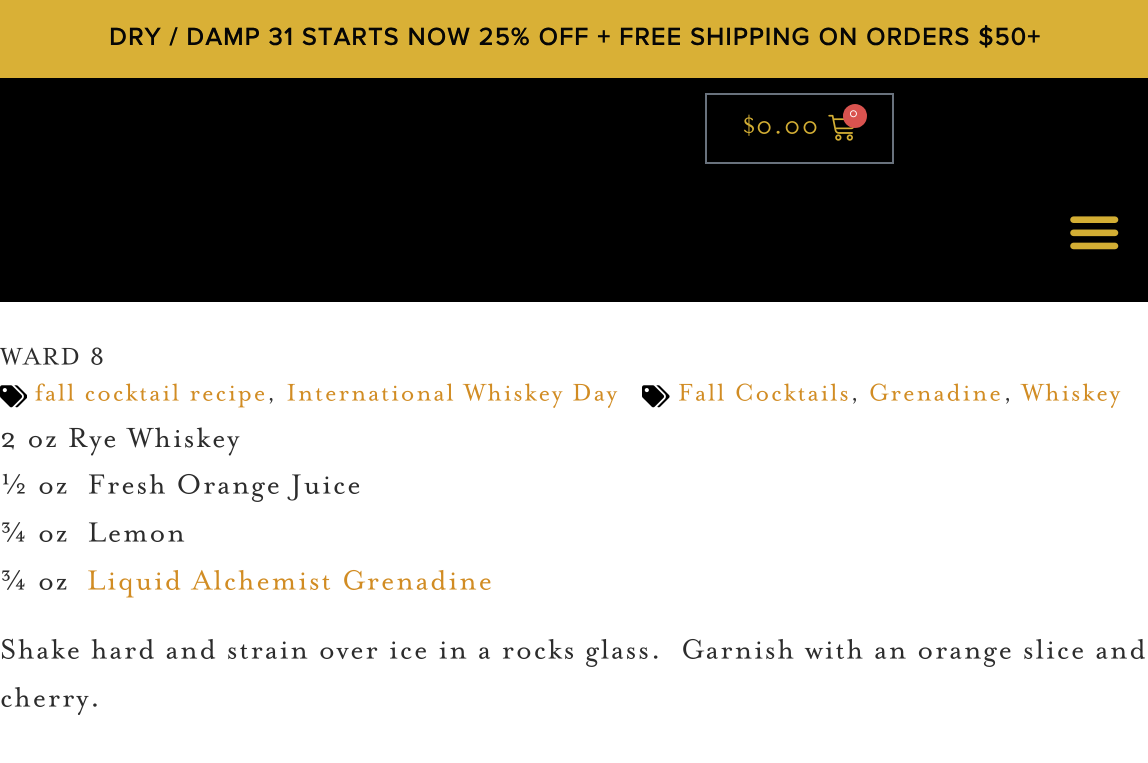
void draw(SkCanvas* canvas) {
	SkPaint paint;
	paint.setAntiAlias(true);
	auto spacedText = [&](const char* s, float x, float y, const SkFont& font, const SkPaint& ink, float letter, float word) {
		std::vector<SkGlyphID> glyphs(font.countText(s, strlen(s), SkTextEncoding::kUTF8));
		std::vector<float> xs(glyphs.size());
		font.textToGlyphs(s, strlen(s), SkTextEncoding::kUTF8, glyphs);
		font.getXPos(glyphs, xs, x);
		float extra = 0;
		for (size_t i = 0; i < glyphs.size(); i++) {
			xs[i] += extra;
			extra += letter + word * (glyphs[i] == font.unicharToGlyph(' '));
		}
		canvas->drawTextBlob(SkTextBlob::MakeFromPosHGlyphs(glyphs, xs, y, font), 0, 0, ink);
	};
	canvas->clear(0xffffffff);
	paint.setColor(0xffd9b036);
	canvas->drawRect(SkRect::MakeXYWH(0, 0, 1148, 78), paint);
	SkFont f1(fontMgr->matchFamilyStyle("Proxima Nova", SkFontStyle::Bold()), 24.85);
	f1.setSubpixel(true);
	paint.setColor(0xff060606);
	spacedText("DRY / DAMP 31 STARTS NOW 25% OFF + FREE SHIPPING ON ORDERS $50+", 109, 45, f1, paint, 1.5, 0);
	paint.setColor(0xff000000);
	canvas->drawRect(SkRect::MakeXYWH(0, 78, 1148, 224), paint);
	paint.setStroke(true);
	paint.setStrokeWidth(2);
	paint.setColor(0xff69727d);
	canvas->drawRect(SkRect::MakeXYWH(706, 94, 187, 69), paint);
	canvas->drawImageRect(SkImages::DeferredFromEncodedData(SkData::MakeFromFileName("img1.png")), SkRect::MakeXYWH(744, 114, 10, 22), SkSamplingOptions());
	canvas->drawImageRect(SkImages::DeferredFromEncodedData(SkData::MakeFromFileName("img2.png")), SkRect::MakeXYWH(757, 121, 60, 13), SkSamplingOptions());
	canvas->drawImageRect(SkImages::DeferredFromEncodedData(SkData::MakeFromFileName("img4.png")), SkRect::MakeXYWH(828, 114, 27, 27), SkSamplingOptions());
	paint.setStroke(false);
	paint.setColor(0xffd9534f);
	canvas->drawCircle(855, 116, 12, paint);
	canvas->drawImageRect(SkImages::DeferredFromEncodedData(SkData::MakeFromFileName("img3.png")), SkRect::MakeXYWH(850, 110, 7, 8), SkSamplingOptions());
	canvas->drawImageRect(SkImages::DeferredFromEncodedData(SkData::MakeFromFileName("img5.png")), SkRect::MakeXYWH(1070, 216, 49, 34), SkSamplingOptions());
	canvas->drawImageRect(SkImages::DeferredFromEncodedData(SkData::MakeFromFileName("img6.png")), SkRect::MakeXYWH(0, 347, 103, 18), SkSamplingOptions());
	canvas->drawImageRect(SkImages::DeferredFromEncodedData(SkData::MakeFromFileName("img7.png")), SkRect::MakeXYWH(0, 385, 27, 23), SkSamplingOptions());
	canvas->drawImageRect(SkImages::DeferredFromEncodedData(SkData::MakeFromFileName("img8.png")), SkRect::MakeXYWH(35, 383, 230, 25), SkSamplingOptions());
	canvas->drawImageRect(SkImages::DeferredFromEncodedData(SkData::MakeFromFileName("img9.png")), SkRect::MakeXYWH(269, 397, 4, 7), SkSamplingOptions());
	canvas->drawImageRect(SkImages::DeferredFromEncodedData(SkData::MakeFromFileName("img10.png")), SkRect::MakeXYWH(287, 383, 331, 25), SkSamplingOptions());
	canvas->drawImageRect(SkImages::DeferredFromEncodedData(SkData::MakeFromFileName("img11.png")), SkRect::MakeXYWH(642, 385, 28, 23), SkSamplingOptions());
	canvas->drawImageRect(SkImages::DeferredFromEncodedData(SkData::MakeFromFileName("img12.png")), SkRect::MakeXYWH(679, 383, 169, 18), SkSamplingOptions());
	canvas->drawImageRect(SkImages::DeferredFromEncodedData(SkData::MakeFromFileName("img13.png")), SkRect::MakeXYWH(853, 397, 3, 7), SkSamplingOptions());
	canvas->drawImageRect(SkImages::DeferredFromEncodedData(SkData::MakeFromFileName("img14.png")), SkRect::MakeXYWH(870, 383, 130, 18), SkSamplingOptions());
	canvas->drawImageRect(SkImages::DeferredFromEncodedData(SkData::MakeFromFileName("img13.png")), SkRect::MakeXYWH(1006, 397, 3, 7), SkSamplingOptions());
	canvas->drawImageRect(SkImages::DeferredFromEncodedData(SkData::MakeFromFileName("img15.png")), SkRect::MakeXYWH(1020, 383, 101, 25), SkSamplingOptions());
	canvas->drawImageRect(SkImages::DeferredFromEncodedData(SkData::MakeFromFileName("img16.png")), SkRect::MakeXYWH(1, 427, 239, 29), SkSamplingOptions());
	canvas->drawImageRect(SkImages::DeferredFromEncodedData(SkData::MakeFromFileName("img17.png")), SkRect::MakeXYWH(2, 473, 358, 29), SkSamplingOptions());
	canvas->drawImageRect(SkImages::DeferredFromEncodedData(SkData::MakeFromFileName("img18.png")), SkRect::MakeXYWH(2, 522, 183, 20), SkSamplingOptions());
	canvas->drawImageRect(SkImages::DeferredFromEncodedData(SkData::MakeFromFileName("img19.png")), SkRect::MakeXYWH(2, 570, 65, 20), SkSamplingOptions());
	canvas->drawImageRect(SkImages::DeferredFromEncodedData(SkData::MakeFromFileName("img20.png")), SkRect::MakeXYWH(88, 569, 403, 29), SkSamplingOptions());
	canvas->drawImageRect(SkImages::DeferredFromEncodedData(SkData::MakeFromFileName("img21.png")), SkRect::MakeXYWH(1, 638, 1144, 29), SkSamplingOptions());
	canvas->drawImageRect(SkImages::DeferredFromEncodedData(SkData::MakeFromFileName("img22.png")), SkRect::MakeXYWH(1, 687, 96, 28), SkSamplingOptions());
}
